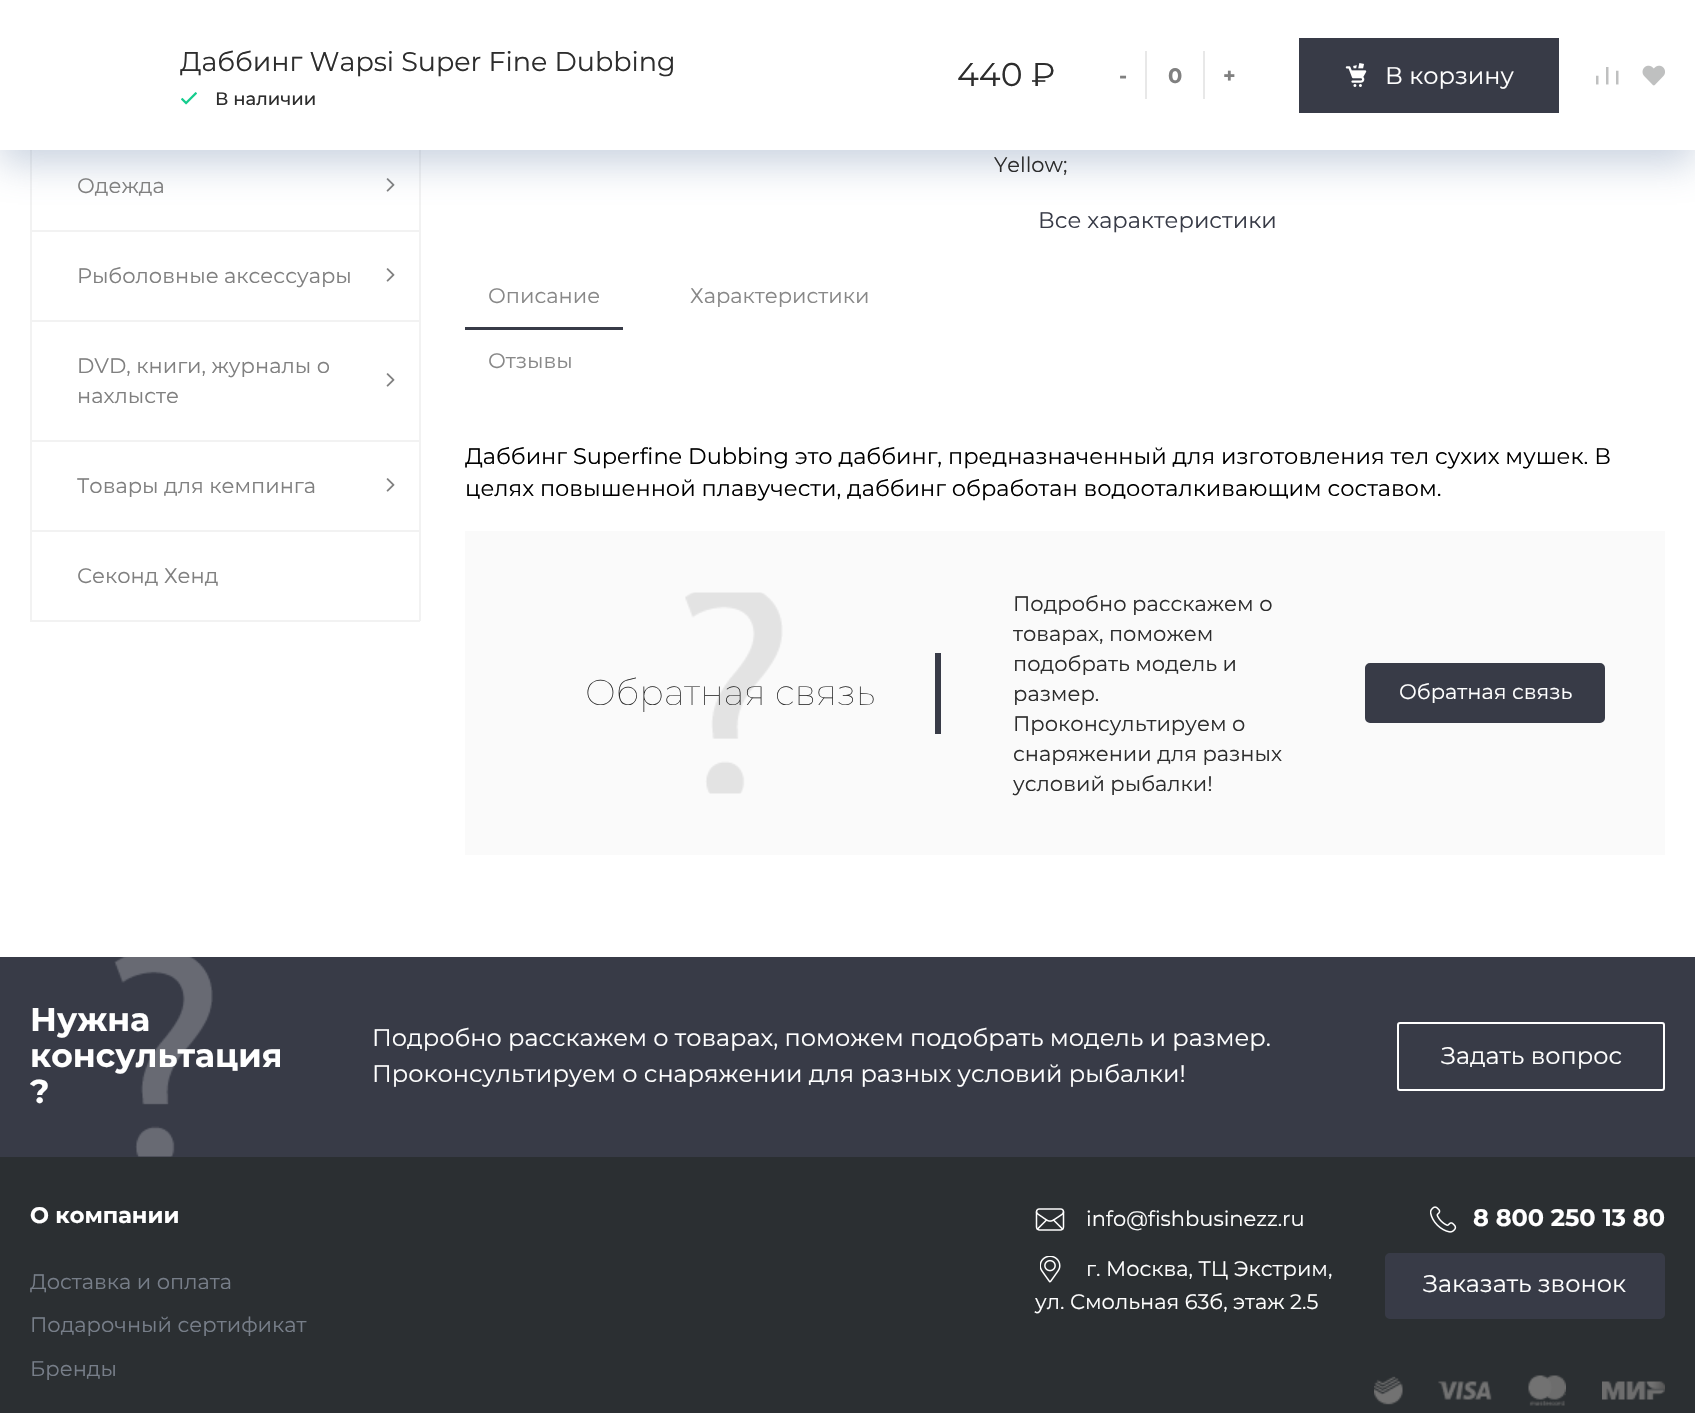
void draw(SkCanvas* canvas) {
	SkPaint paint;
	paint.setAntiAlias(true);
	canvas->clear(0xffffffff);
	paint.setColor(0xfff2f2f2);
	canvas->drawRect(SkRect::MakeXYWH(419, 150, 2, 81), paint);
	canvas->drawRect(SkRect::MakeXYWH(30, 230, 390, 2), paint);
	canvas->drawRect(SkRect::MakeXYWH(30, 150, 2, 81), paint);
	canvas->drawImageRect(SkImages::DeferredFromEncodedData(SkData::MakeFromFileName("img6.png")), SkRect::MakeXYWH(386, 178, 9, 14), SkSamplingOptions());
	paint.setColor(0x596782a5);
	paint.setMaskFilter(SkMaskFilter::MakeBlur(kNormal_SkBlurStyle, 18));
	canvas->drawRect(SkRect::MakeXYWH(0, 14, 1695, 150), paint);
	paint.setMaskFilter(nullptr);
	paint.setColor(0xffffffff);
	canvas->drawRect(SkRect::MakeXYWH(0, 0, 1695, 150), paint);
	SkFont f1(fontMgr->matchFamilyStyle("Montserrat", SkFontStyle::Normal()), 27);
	f1.setSubpixel(true);
	paint.setColor(0xff2d2d2d);
	canvas->drawString("Даббинг Wapsi Super Fine Dubbing", 180, 71, f1, paint);
	canvas->drawImageRect(SkImages::DeferredFromEncodedData(SkData::MakeFromFileName("img1.png")), SkRect::MakeXYWH(181, 92, 16, 13), SkSamplingOptions());
	SkFont f2(fontMgr->matchFamilyStyle("Montserrat", SkFontStyle(500, SkFontStyle::kNormal_Width, SkFontStyle::kUpright_Slant)), 18);
	f2.setSubpixel(true);
	canvas->drawString("В наличии", 215, 105, f2, paint);
	SkFont f3(fontMgr->matchFamilyStyle("Montserrat", SkFontStyle::Normal()), 33);
	f3.setSubpixel(true);
	canvas->drawString("440 ₽", 957, 86, f3, paint);
	SkFont f4(fontMgr->matchFamilyStyle("Montserrat", SkFontStyle::Bold()), 21);
	f4.setSubpixel(true);
	paint.setColor(0xff808080);
	canvas->drawString("-", 1119, 83, f4, paint);
	paint.setColor(0xffe8e8e8);
	canvas->drawRect(SkRect::MakeXYWH(1203, 51, 2, 48), paint);
	canvas->drawRect(SkRect::MakeXYWH(1145, 51, 2, 48), paint);
	paint.setColor(0xff808080);
	canvas->drawString("0", 1168, 83, f4, paint);
	canvas->drawString("+", 1223, 83, f4, paint);
	paint.setColor(0xff383b47);
	canvas->drawRect(SkRect::MakeXYWH(1299, 38, 260, 75), paint);
	canvas->drawImageRect(SkImages::DeferredFromEncodedData(SkData::MakeFromFileName("img2.png")), SkRect::MakeXYWH(1345, 63, 22, 24), SkSamplingOptions());
	SkFont f5(fontMgr->matchFamilyStyle("Montserrat", SkFontStyle::Normal()), 24);
	f5.setSubpixel(true);
	paint.setColor(0xffffffff);
	canvas->drawString("В корзину", 1385, 84, f5, paint);
	canvas->drawImageRect(SkImages::DeferredFromEncodedData(SkData::MakeFromFileName("img3.png")), SkRect::MakeXYWH(1596, 67, 23, 18), SkSamplingOptions());
	canvas->drawImageRect(SkImages::DeferredFromEncodedData(SkData::MakeFromFileName("img4.png")), SkRect::MakeXYWH(1642, 65, 23, 21), SkSamplingOptions());
	SkFont f6(fontMgr->matchFamilyStyle("Montserrat", SkFontStyle::Normal()), 21);
	f6.setSubpixel(true);
	paint.setColor(0xff2d2d2d);
	canvas->drawString("Yellow;", 994, 172, f6, paint);
	SkFont f7(fontMgr->matchFamilyStyle("Montserrat", SkFontStyle::Normal()), 22.5);
	f7.setSubpixel(true);
	paint.setColor(0xff383b47);
	canvas->drawString("Все характеристики", 1038, 228, f7, paint);
	canvas->drawRect(SkRect::MakeXYWH(465, 327, 158, 3), paint);
	paint.setColor(0xff888888);
	canvas->drawString("Описание", 488, 303, f6, paint);
	canvas->drawString("Характеристики", 690, 303, f6, paint);
	canvas->drawString("Отзывы", 488, 368, f6, paint);
	paint.setColor(0xff000000);
	canvas->drawString("Даббинг Superfine Dubbing это даббинг, предназначенный для изготовления тел сухих мушек. В", 465, 464, f7, paint);
	canvas->drawString("целях повышенной плавучести, даббинг обработан водооталкивающим составом.", 465, 496, f7, paint);
	paint.setColor(0xfffafafa);
	canvas->drawRect(SkRect::MakeXYWH(465, 531, 1200, 324), paint);
	SkFont f8(fontMgr->matchFamilyStyle("Montserrat", SkFontStyle(100, SkFontStyle::kNormal_Width, SkFontStyle::kUpright_Slant)), 36);
	f8.setSubpixel(true);
	paint.setColor(0xff2d2d2d);
	canvas->drawString("Обратная связь", 585, 705, f8, paint);
	canvas->drawImageRect(SkImages::DeferredFromEncodedData(SkData::MakeFromFileName("img5.png")), SkRect::MakeXYWH(685, 592, 98, 202), SkSamplingOptions());
	paint.setColor(0xff383b47);
	canvas->drawRect(SkRect::MakeXYWH(935, 653, 6, 81), paint);
	paint.setColor(0xff2d2d2d);
	canvas->drawString("Подробно расскажем о", 1013, 611, f6, paint);
	canvas->drawString("товарах, поможем", 1013, 641, f6, paint);
	canvas->drawString("подобрать модель и", 1013, 671, f6, paint);
	canvas->drawString("размер.", 1013, 701, f6, paint);
	canvas->drawString("Проконсультируем о", 1013, 731, f6, paint);
	canvas->drawString("снаряжении для разных", 1013, 761, f6, paint);
	canvas->drawString("условий рыбалки!", 1013, 791, f6, paint);
	paint.setColor(0xff383b47);
	canvas->drawRoundRect(SkRect::MakeXYWH(1366.5, 664.5, 237, 57), 3.5, 3.5, paint);
	paint.setStroke(true);
	paint.setStrokeWidth(3);
	canvas->drawRoundRect(SkRect::MakeXYWH(1366.5, 664.5, 237, 57), 3.5, 3.5, paint);
	paint.setStroke(false);
	paint.setColor(0xffffffff);
	canvas->drawString("Обратная связь", 1399, 699, f6, paint);
	paint.setColor(0xff808080);
	canvas->drawString("Одежда", 77, 193, f6, paint);
	paint.setColor(0xfff2f2f2);
	canvas->drawRect(SkRect::MakeXYWH(419, 231, 2, 90), paint);
	canvas->drawRect(SkRect::MakeXYWH(30, 320, 390, 2), paint);
	canvas->drawRect(SkRect::MakeXYWH(30, 231, 2, 90), paint);
	paint.setColor(0xff808080);
	canvas->drawString("Рыболовные аксессуары", 77, 283, f6, paint);
	canvas->drawImageRect(SkImages::DeferredFromEncodedData(SkData::MakeFromFileName("img6.png")), SkRect::MakeXYWH(386, 268, 9, 14), SkSamplingOptions());
	paint.setColor(0xfff2f2f2);
	canvas->drawRect(SkRect::MakeXYWH(419, 321, 2, 120), paint);
	canvas->drawRect(SkRect::MakeXYWH(30, 440, 390, 2), paint);
	canvas->drawRect(SkRect::MakeXYWH(30, 321, 2, 120), paint);
	paint.setColor(0xff808080);
	canvas->drawString("DVD, книги, журналы о", 77, 373, f6, paint);
	canvas->drawString("нахлысте", 77, 403, f6, paint);
	canvas->drawImageRect(SkImages::DeferredFromEncodedData(SkData::MakeFromFileName("img6.png")), SkRect::MakeXYWH(386, 373, 9, 14), SkSamplingOptions());
	paint.setColor(0xfff2f2f2);
	canvas->drawRect(SkRect::MakeXYWH(419, 441, 2, 90), paint);
	canvas->drawRect(SkRect::MakeXYWH(30, 530, 390, 2), paint);
	canvas->drawRect(SkRect::MakeXYWH(30, 441, 2, 90), paint);
	paint.setColor(0xff808080);
	canvas->drawString("Товары для кемпинга", 77, 493, f6, paint);
	canvas->drawImageRect(SkImages::DeferredFromEncodedData(SkData::MakeFromFileName("img6.png")), SkRect::MakeXYWH(386, 478, 9, 14), SkSamplingOptions());
	paint.setColor(0xfff2f2f2);
	canvas->drawRect(SkRect::MakeXYWH(419, 531, 2, 90), paint);
	canvas->drawRect(SkRect::MakeXYWH(30, 620, 390, 2), paint);
	canvas->drawRect(SkRect::MakeXYWH(30, 531, 2, 90), paint);
	paint.setColor(0xff808080);
	canvas->drawString("Секонд Хенд", 77, 583, f6, paint);
	paint.setColor(0xff383b47);
	canvas->drawRect(SkRect::MakeXYWH(0, 957, 1695, 200), paint);
	SkFont f9(fontMgr->matchFamilyStyle("Montserrat", SkFontStyle::Bold()), 33);
	f9.setSubpixel(true);
	paint.setColor(0xffffffff);
	canvas->drawString("Нужна", 30, 1031, f9, paint);
	canvas->drawString("консультация", 30, 1067, f9, paint);
	canvas->drawImageRect(SkImages::DeferredFromEncodedData(SkData::MakeFromFileName("img7.png")), SkRect::MakeXYWH(114, 957, 99, 200), SkSamplingOptions());
	canvas->drawString("?", 30, 1103, f9, paint);
	canvas->drawString("Подробно расскажем о товарах, поможем подобрать модель и размер.", 372, 1046, f5, paint);
	canvas->drawString("Проконсультируем о снаряжении для разных условий рыбалки!", 372, 1082, f5, paint);
	paint.setStroke(true);
	paint.setStrokeWidth(2);
	canvas->drawRoundRect(SkRect::MakeXYWH(1398, 1023, 266, 67), 2, 2, paint);
	paint.setStroke(false);
	canvas->drawString("Задать вопрос", 1441, 1064, f5, paint);
	paint.setColor(0xff2b2f32);
	canvas->drawRect(SkRect::MakeXYWH(0, 1157, 1695, 256), paint);
	SkFont f10(fontMgr->matchFamilyStyle("Montserrat", SkFontStyle::Bold()), 22.5);
	f10.setSubpixel(true);
	paint.setColor(0xffffffff);
	canvas->drawString("О компании", 30, 1223, f10, paint);
	paint.setColor(0xff777e89);
	canvas->drawString("Доставка и оплата", 30, 1289, f6, paint);
	canvas->drawString("Подарочный сертификат", 30, 1332, f6, paint);
	canvas->drawString("Бренды", 30, 1376, f6, paint);
	canvas->drawImageRect(SkImages::DeferredFromEncodedData(SkData::MakeFromFileName("img8.png")), SkRect::MakeXYWH(1035, 1208, 30, 23), SkSamplingOptions());
	paint.setColor(0xffffffff);
	canvas->drawString("info@fishbusinezz.ru", 1086, 1226, f6, paint);
	canvas->drawImageRect(SkImages::DeferredFromEncodedData(SkData::MakeFromFileName("img9.png")), SkRect::MakeXYWH(1430, 1206, 27, 27), SkSamplingOptions());
	SkFont f11(fontMgr->matchFamilyStyle("Montserrat", SkFontStyle::Bold()), 24);
	f11.setSubpixel(true);
	canvas->drawString("8 800 250 13 80", 1473, 1226, f11, paint);
	canvas->drawImageRect(SkImages::DeferredFromEncodedData(SkData::MakeFromFileName("img10.png")), SkRect::MakeXYWH(1040, 1256, 21, 27), SkSamplingOptions());
	canvas->drawString("г. Москва, ТЦ Экстрим,", 1086, 1276, f6, paint);
	canvas->drawString("ул. Смольная 63б, этаж 2.5", 1035, 1309, f6, paint);
	paint.setColor(0xff383b47);
	canvas->drawRoundRect(SkRect::MakeXYWH(1386.5, 1254.5, 277, 63), 3.5, 3.5, paint);
	paint.setStroke(true);
	paint.setStrokeWidth(3);
	canvas->drawRoundRect(SkRect::MakeXYWH(1386.5, 1254.5, 277, 63), 3.5, 3.5, paint);
	paint.setStroke(false);
	paint.setColor(0xffffffff);
	canvas->drawString("Заказать звонок", 1423, 1292, f5, paint);
	canvas->drawImageRect(SkImages::DeferredFromEncodedData(SkData::MakeFromFileName("img11.png")), SkRect::MakeXYWH(1374, 1376, 29, 29), SkSamplingOptions());
	canvas->drawImageRect(SkImages::DeferredFromEncodedData(SkData::MakeFromFileName("img12.png")), SkRect::MakeXYWH(1438, 1381, 54, 19), SkSamplingOptions());
	canvas->drawImageRect(SkImages::DeferredFromEncodedData(SkData::MakeFromFileName("img13.png")), SkRect::MakeXYWH(1528, 1375, 38, 31), SkSamplingOptions());
	canvas->drawImageRect(SkImages::DeferredFromEncodedData(SkData::MakeFromFileName("img14.png")), SkRect::MakeXYWH(1602, 1381, 63, 19), SkSamplingOptions());
}
